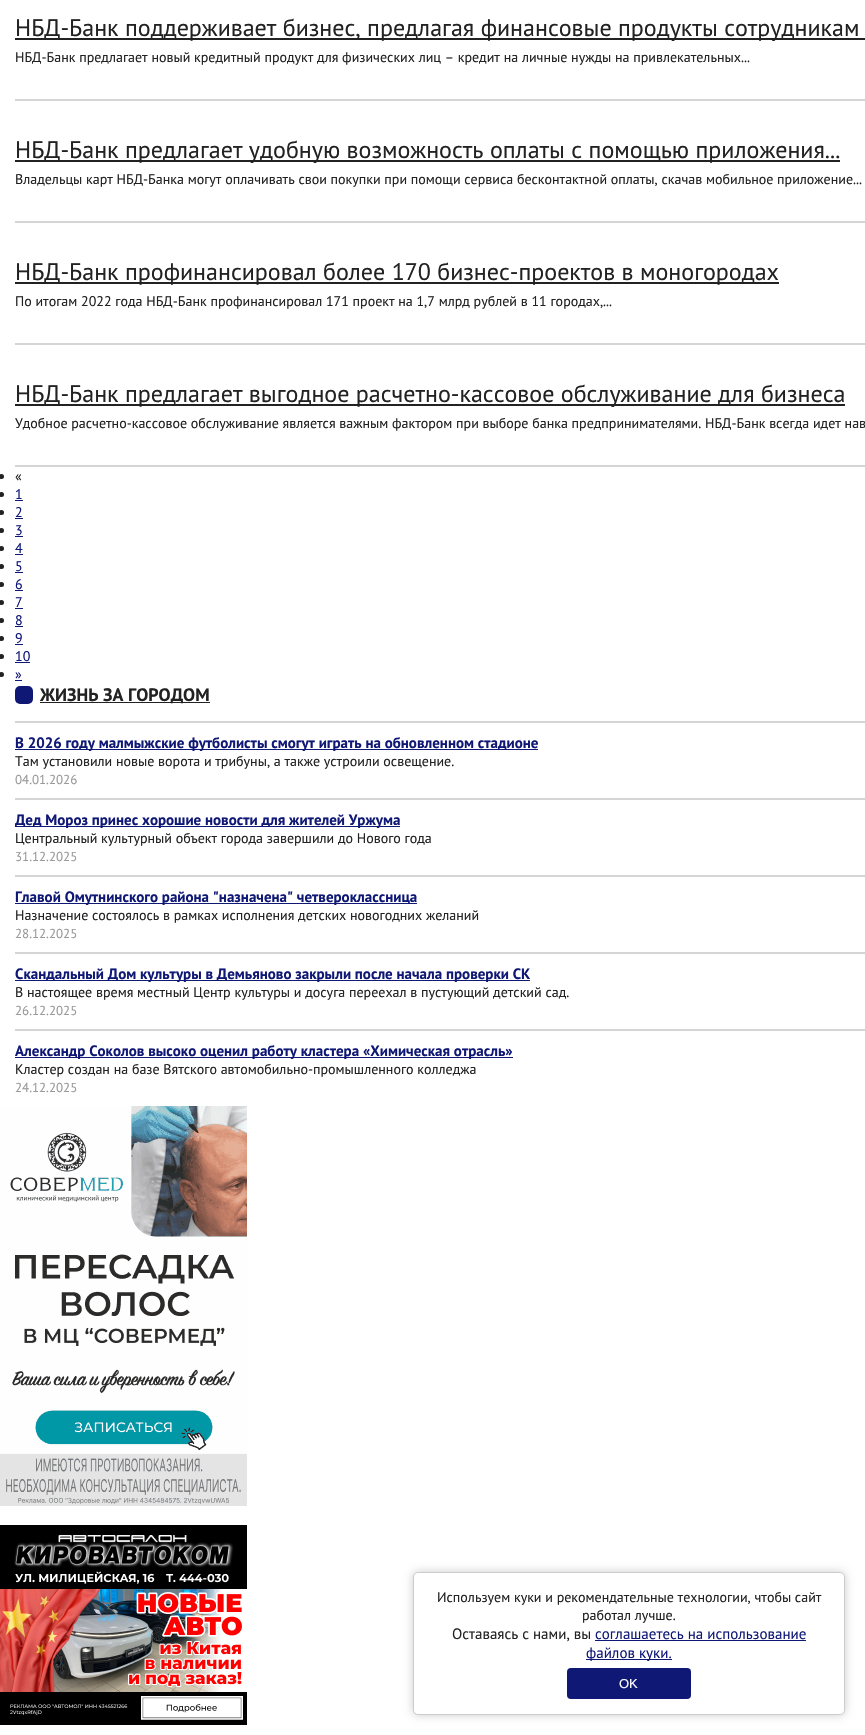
void draw(SkCanvas* canvas) {
	SkPaint paint;
	paint.setAntiAlias(true);
	canvas->clear(0xffffffff);
	paint.setColor(0xff222222);
	canvas->drawRect(SkRect::MakeXYWH(15, 38, 850, 2), paint);
	SkFont f1(fontMgr->matchFamilyStyle("PT Sans", SkFontStyle::Normal()), 24);
	f1.setSubpixel(true);
	canvas->drawString("НБД-Банк поддерживает бизнес, предлагая финансовые продукты сотрудникам", 15, 36, f1, paint);
	SkFont f2(fontMgr->matchFamilyStyle("PT Sans", SkFontStyle::Normal()), 14);
	f2.setSubpixel(true);
	canvas->drawString("НБД-Банк предлагает новый кредитный продукт для физических лиц – кредит на личные нужды на привлекательных...", 15, 62, f2, paint);
	paint.setColor(0xffd5d5d5);
	canvas->drawRect(SkRect::MakeXYWH(15, 99, 850, 2), paint);
	paint.setColor(0xff222222);
	canvas->drawRect(SkRect::MakeXYWH(15, 160, 825, 2), paint);
	canvas->drawString("НБД-Банк предлагает удобную возможность оплаты с помощью приложения...", 15, 158, f1, paint);
	canvas->drawString("Владельцы карт НБД-Банка могут оплачивать свои покупки при помощи сервиса бесконтактной оплаты, скачав мобильное приложение...", 15, 184, f2, paint);
	paint.setColor(0xffd5d5d5);
	canvas->drawRect(SkRect::MakeXYWH(15, 221, 850, 2), paint);
	paint.setColor(0xff222222);
	canvas->drawRect(SkRect::MakeXYWH(15, 282, 764, 2), paint);
	canvas->drawString("НБД-Банк профинансировал более 170 бизнес-проектов в моногородах", 15, 280, f1, paint);
	canvas->drawString("По итогам 2022 года НБД-Банк профинансировал 171 проект на 1,7 млрд рублей в 11 городах,...", 15, 306, f2, paint);
	paint.setColor(0xffd5d5d5);
	canvas->drawRect(SkRect::MakeXYWH(15, 343, 850, 2), paint);
	paint.setColor(0xff222222);
	canvas->drawRect(SkRect::MakeXYWH(15, 404, 830, 2), paint);
	canvas->drawString("НБД-Банк предлагает выгодное расчетно-кассовое обслуживание для бизнеса", 15, 402, f1, paint);
	canvas->drawString("Удобное расчетно-кассовое обслуживание является важным фактором при выборе банка предпринимателями. НБД-Банк всегда идет нав", 15, 428, f2, paint);
	paint.setColor(0xffd5d5d5);
	canvas->drawRect(SkRect::MakeXYWH(15, 465, 850, 2), paint);
	paint.setColor(0xff222222);
	canvas->drawCircle(1.5, 476.5, 2.5, paint);
	canvas->drawString("«", 15, 481, f2, paint);
	canvas->drawCircle(1.5, 494.5, 2.5, paint);
	paint.setColor(0xff0f1875);
	canvas->drawString("1", 15, 499, f2, paint);
	canvas->drawRect(SkRect::MakeXYWH(15, 500, 8, 1), paint);
	paint.setColor(0xff222222);
	canvas->drawCircle(1.5, 512.5, 2.5, paint);
	paint.setColor(0xff0f1875);
	canvas->drawString("2", 15, 517, f2, paint);
	canvas->drawRect(SkRect::MakeXYWH(15, 518, 8, 1), paint);
	paint.setColor(0xff222222);
	canvas->drawCircle(1.5, 530.5, 2.5, paint);
	paint.setColor(0xff0f1875);
	canvas->drawString("3", 15, 535, f2, paint);
	canvas->drawRect(SkRect::MakeXYWH(15, 536, 8, 1), paint);
	paint.setColor(0xff222222);
	canvas->drawCircle(1.5, 548.5, 2.5, paint);
	paint.setColor(0xff0f1875);
	canvas->drawString("4", 15, 553, f2, paint);
	canvas->drawRect(SkRect::MakeXYWH(15, 554, 8, 1), paint);
	paint.setColor(0xff222222);
	canvas->drawCircle(1.5, 566.5, 2.5, paint);
	paint.setColor(0xff0f1875);
	canvas->drawString("5", 15, 571, f2, paint);
	canvas->drawRect(SkRect::MakeXYWH(15, 572, 8, 1), paint);
	paint.setColor(0xff222222);
	canvas->drawCircle(1.5, 584.5, 2.5, paint);
	paint.setColor(0xff0f1875);
	canvas->drawString("6", 15, 589, f2, paint);
	canvas->drawRect(SkRect::MakeXYWH(15, 590, 8, 1), paint);
	paint.setColor(0xff222222);
	canvas->drawCircle(1.5, 602.5, 2.5, paint);
	paint.setColor(0xff0f1875);
	canvas->drawString("7", 15, 607, f2, paint);
	canvas->drawRect(SkRect::MakeXYWH(15, 608, 8, 1), paint);
	paint.setColor(0xff222222);
	canvas->drawCircle(1.5, 620.5, 2.5, paint);
	paint.setColor(0xff0f1875);
	canvas->drawString("8", 15, 625, f2, paint);
	canvas->drawRect(SkRect::MakeXYWH(15, 626, 8, 1), paint);
	paint.setColor(0xff222222);
	canvas->drawCircle(1.5, 638.5, 2.5, paint);
	paint.setColor(0xff0f1875);
	canvas->drawString("9", 15, 643, f2, paint);
	canvas->drawRect(SkRect::MakeXYWH(15, 644, 8, 1), paint);
	paint.setColor(0xff222222);
	canvas->drawCircle(1.5, 656.5, 2.5, paint);
	paint.setColor(0xff0f1875);
	canvas->drawString("10", 15, 661, f2, paint);
	canvas->drawRect(SkRect::MakeXYWH(15, 662, 15, 1), paint);
	paint.setColor(0xff222222);
	canvas->drawCircle(1.5, 674.5, 2.5, paint);
	paint.setColor(0xff0f1875);
	canvas->drawString("»", 15, 679, f2, paint);
	canvas->drawRect(SkRect::MakeXYWH(15, 680, 7, 1), paint);
	canvas->drawRoundRect(SkRect::MakeXYWH(15, 686, 18, 18), 5, 5, paint);
	paint.setColor(0xff222222);
	canvas->drawRect(SkRect::MakeXYWH(40, 702, 170, 1), paint);
	SkFont f3(fontMgr->matchFamilyStyle("PT Sans", SkFontStyle::Bold()), 18);
	f3.setSubpixel(true);
	canvas->drawString("ЖИЗНЬ ЗА ГОРОДОМ", 40, 701, f3, paint);
	paint.setColor(0xffd5d5d5);
	canvas->drawRect(SkRect::MakeXYWH(15, 721, 850, 2), paint);
	paint.setColor(0xff0f1875);
	canvas->drawRect(SkRect::MakeXYWH(15, 749, 523, 1), paint);
	SkFont f4(fontMgr->matchFamilyStyle("PT Sans", SkFontStyle::Bold()), 15);
	f4.setSubpixel(true);
	canvas->drawString("В 2026 году малмыжские футболисты смогут играть на обновленном стадионе", 15, 748, f4, paint);
	paint.setColor(0xff222222);
	canvas->drawString("Там установили новые ворота и трибуны, а также устроили освещение.", 15, 766, f2, paint);
	SkFont f5(fontMgr->matchFamilyStyle("PT Sans", SkFontStyle::Normal()), 13);
	f5.setSubpixel(true);
	paint.setColor(0xff999999);
	canvas->drawString("04.01.2026", 15, 784, f5, paint);
	paint.setColor(0xffd5d5d5);
	canvas->drawRect(SkRect::MakeXYWH(15, 798, 850, 2), paint);
	paint.setColor(0xff0f1875);
	canvas->drawRect(SkRect::MakeXYWH(15, 826, 385, 1), paint);
	canvas->drawString("Дед Мороз принес хорошие новости для жителей Уржума", 15, 825, f4, paint);
	paint.setColor(0xff222222);
	canvas->drawString("Центральный культурный объект города завершили до Нового года", 15, 843, f2, paint);
	paint.setColor(0xff999999);
	canvas->drawString("31.12.2025", 15, 861, f5, paint);
	paint.setColor(0xffd5d5d5);
	canvas->drawRect(SkRect::MakeXYWH(15, 875, 850, 2), paint);
	paint.setColor(0xff0f1875);
	canvas->drawRect(SkRect::MakeXYWH(15, 903, 402, 1), paint);
	canvas->drawString("Главой Омутнинского района \"назначена\" четвероклассница", 15, 902, f4, paint);
	paint.setColor(0xff222222);
	canvas->drawString("Назначение состоялось в рамках исполнения детских новогодних желаний", 15, 920, f2, paint);
	paint.setColor(0xff999999);
	canvas->drawString("28.12.2025", 15, 938, f5, paint);
	paint.setColor(0xffd5d5d5);
	canvas->drawRect(SkRect::MakeXYWH(15, 952, 850, 2), paint);
	paint.setColor(0xff0f1875);
	canvas->drawRect(SkRect::MakeXYWH(15, 980, 515, 1), paint);
	canvas->drawString("Скандальный Дом культуры в Демьяново закрыли после начала проверки СК", 15, 979, f4, paint);
	paint.setColor(0xff222222);
	canvas->drawString("В настоящее время местный Центр культуры и досуга переехал в пустующий детский сад.", 15, 997, f2, paint);
	paint.setColor(0xff999999);
	canvas->drawString("26.12.2025", 15, 1015, f5, paint);
	paint.setColor(0xffd5d5d5);
	canvas->drawRect(SkRect::MakeXYWH(15, 1029, 850, 2), paint);
	paint.setColor(0xff0f1875);
	canvas->drawRect(SkRect::MakeXYWH(15, 1057, 498, 1), paint);
	canvas->drawString("Александр Соколов высоко оценил работу кластера «Химическая отрасль»", 15, 1056, f4, paint);
	paint.setColor(0xff222222);
	canvas->drawString("Кластер создан на базе Вятского автомобильно-промышленного колледжа", 15, 1074, f2, paint);
	paint.setColor(0xff999999);
	canvas->drawString("24.12.2025", 15, 1092, f5, paint);
	canvas->drawImageRect(SkImages::DeferredFromEncodedData(SkData::MakeFromFileName("img1.png")), SkRect::MakeXYWH(0, 1106, 247, 400), SkSamplingOptions());
	canvas->drawImageRect(SkImages::DeferredFromEncodedData(SkData::MakeFromFileName("img2.png")), SkRect::MakeXYWH(0, 1525, 247, 200), SkSamplingOptions());
	paint.setColor(0x33000000);
	paint.setMaskFilter(SkMaskFilter::MakeBlur(kNormal_SkBlurStyle, 5));
	canvas->drawRoundRect(SkRect::MakeXYWH(413, 1572, 432, 143), 5, 5, paint);
	paint.setMaskFilter(nullptr);
	paint.setColor(0xffffffff);
	canvas->drawRoundRect(SkRect::MakeXYWH(413.5, 1572.5, 431, 142), 4.5, 4.5, paint);
	paint.setStroke(true);
	paint.setStrokeWidth(1);
	paint.setColor(0xffcccccc);
	canvas->drawRoundRect(SkRect::MakeXYWH(413.5, 1572.5, 431, 142), 4.5, 4.5, paint);
	paint.setStroke(false);
	paint.setColor(0xff222222);
	canvas->drawString("Используем куки и рекомендательные технологии, чтобы сайт", 437, 1602, f2, paint);
	canvas->drawString("работал лучше.", 582, 1620, f2, paint);
	SkFont f6(fontMgr->matchFamilyStyle("PT Sans", SkFontStyle::Normal()), 15);
	f6.setSubpixel(true);
	canvas->drawString("Оставаясь с нами, вы", 452, 1639, f6, paint);
	paint.setColor(0xff0f1875);
	canvas->drawString("соглашаетесь на использование", 595, 1639, f6, paint);
	canvas->drawRect(SkRect::MakeXYWH(595, 1640, 211, 1), paint);
	canvas->drawRect(SkRect::MakeXYWH(586, 1659, 86, 1), paint);
	canvas->drawString("файлов куки.", 586, 1658, f6, paint);
	paint.setColor(0xff101875);
	canvas->drawRoundRect(SkRect::MakeXYWH(567, 1668, 124, 31), 4, 4, paint);
	SkFont f7(fontMgr->matchFamilyStyle("Liberation Sans", SkFontStyle::Normal()), 13);
	f7.setSubpixel(true);
	paint.setColor(0xffffffff);
	canvas->drawString("OK", 619, 1688, f7, paint);
}
